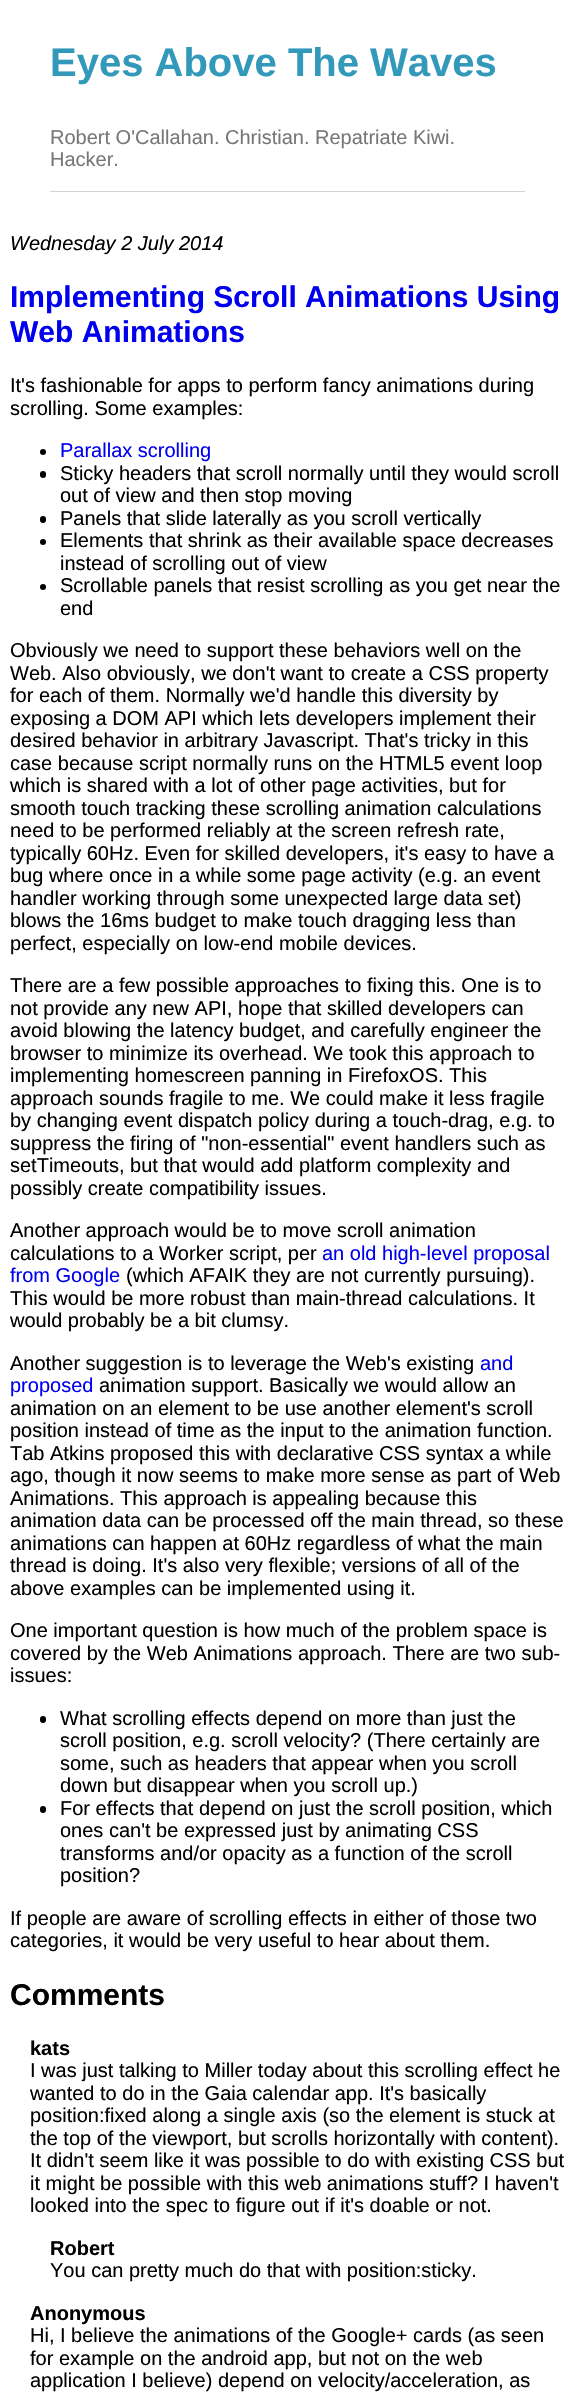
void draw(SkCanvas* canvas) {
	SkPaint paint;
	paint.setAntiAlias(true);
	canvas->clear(0xffffffff);
	SkFont f1(fontMgr->matchFamilyStyle("Liberation Sans", SkFontStyle::Bold()), 40);
	f1.setSubpixel(true);
	paint.setColor(0xff3399bb);
	canvas->drawString("Eyes Above The Waves", 50, 76, f1, paint);
	SkFont f2(fontMgr->matchFamilyStyle("Liberation Sans", SkFontStyle::Normal()), 20);
	f2.setSubpixel(true);
	paint.setColor(0xff777777);
	canvas->drawString("Robert O'Callahan. Christian. Repatriate Kiwi.", 50, 144, f2, paint);
	canvas->drawString("Hacker.", 50, 166, f2, paint);
	paint.setColor(0xffd3d3d3);
	canvas->drawRect(SkRect::MakeXYWH(50, 191, 475, 1), paint);
	SkFont f3(fontMgr->matchFamilyStyle("Liberation Sans", SkFontStyle::Italic()), 20);
	f3.setSubpixel(true);
	paint.setColor(0xff000000);
	canvas->drawString("Wednesday 2 July 2014", 10, 250, f3, paint);
	SkFont f4(fontMgr->matchFamilyStyle("Liberation Sans", SkFontStyle::Bold()), 30);
	f4.setSubpixel(true);
	paint.setColor(0xff0000ee);
	canvas->drawString("Implementing Scroll Animations Using", 10, 307, f4, paint);
	canvas->drawString("Web Animations", 10, 342, f4, paint);
	paint.setColor(0xff000000);
	canvas->drawString("It's fashionable for apps to perform fancy animations during", 10, 392, f2, paint);
	canvas->drawString("scrolling. Some examples:", 10, 415, f2, paint);
	canvas->drawCircle(43, 452, 3, paint);
	paint.setColor(0xff0000ee);
	canvas->drawString("Parallax scrolling", 60, 457, f2, paint);
	paint.setColor(0xff000000);
	canvas->drawRoundRect(SkRect::MakeXYWH(40, 471, 6, 7), 3, 3, paint);
	canvas->drawString("Sticky headers that scroll normally until they would scroll", 60, 480, f2, paint);
	canvas->drawString("out of view and then stop moving", 60, 502, f2, paint);
	canvas->drawRoundRect(SkRect::MakeXYWH(40, 516, 6, 7), 3, 3, paint);
	canvas->drawString("Panels that slide laterally as you scroll vertically", 60, 525, f2, paint);
	canvas->drawCircle(43, 542, 3, paint);
	canvas->drawString("Elements that shrink as their available space decreases", 60, 547, f2, paint);
	canvas->drawString("instead of scrolling out of view", 60, 570, f2, paint);
	canvas->drawCircle(43, 587, 3, paint);
	canvas->drawString("Scrollable panels that resist scrolling as you get near the", 60, 592, f2, paint);
	canvas->drawString("end", 60, 615, f2, paint);
	canvas->drawString("Obviously we need to support these behaviors well on the", 10, 657, f2, paint);
	canvas->drawString("Web. Also obviously, we don't want to create a CSS property", 10, 680, f2, paint);
	canvas->drawString("for each of them. Normally we'd handle this diversity by", 10, 702, f2, paint);
	canvas->drawString("exposing a DOM API which lets developers implement their", 10, 725, f2, paint);
	canvas->drawString("desired behavior in arbitrary Javascript. That's tricky in this", 10, 747, f2, paint);
	canvas->drawString("case because script normally runs on the HTML5 event loop", 10, 770, f2, paint);
	canvas->drawString("which is shared with a lot of other page activities, but for", 10, 792, f2, paint);
	canvas->drawString("smooth touch tracking these scrolling animation calculations", 10, 815, f2, paint);
	canvas->drawString("need to be performed reliably at the screen refresh rate,", 10, 837, f2, paint);
	canvas->drawString("typically 60Hz. Even for skilled developers, it's easy to have a", 10, 860, f2, paint);
	canvas->drawString("bug where once in a while some page activity (e.g. an event", 10, 882, f2, paint);
	canvas->drawString("handler working through some unexpected large data set)", 10, 905, f2, paint);
	canvas->drawString("blows the 16ms budget to make touch dragging less than", 10, 927, f2, paint);
	canvas->drawString("perfect, especially on low-end mobile devices.", 10, 950, f2, paint);
	canvas->drawString("There are a few possible approaches to fixing this. One is to", 10, 992, f2, paint);
	canvas->drawString("not provide any new API, hope that skilled developers can", 10, 1015, f2, paint);
	canvas->drawString("avoid blowing the latency budget, and carefully engineer the", 10, 1037, f2, paint);
	canvas->drawString("browser to minimize its overhead. We took this approach to", 10, 1060, f2, paint);
	canvas->drawString("implementing homescreen panning in FirefoxOS. This", 10, 1082, f2, paint);
	canvas->drawString("approach sounds fragile to me. We could make it less fragile", 10, 1105, f2, paint);
	canvas->drawString("by changing event dispatch policy during a touch-drag, e.g. to", 10, 1127, f2, paint);
	canvas->drawString("suppress the firing of \"non-essential\" event handlers such as", 10, 1150, f2, paint);
	canvas->drawString("setTimeouts, but that would add platform complexity and", 10, 1172, f2, paint);
	canvas->drawString("possibly create compatibility issues.", 10, 1195, f2, paint);
	canvas->drawString("Another approach would be to move scroll animation", 10, 1237, f2, paint);
	canvas->drawString("calculations to a Worker script, per", 10, 1260, f2, paint);
	paint.setColor(0xff0000ee);
	canvas->drawString("an old high-level proposal", 322, 1260, f2, paint);
	canvas->drawString("from Google", 10, 1282, f2, paint);
	paint.setColor(0xff000000);
	canvas->drawString("(which AFAIK they are not currently pursuing).", 126, 1282, f2, paint);
	canvas->drawString("This would be more robust than main-thread calculations. It", 10, 1305, f2, paint);
	canvas->drawString("would probably be a bit clumsy.", 10, 1327, f2, paint);
	canvas->drawString("Another suggestion is to leverage the Web's existing", 10, 1370, f2, paint);
	paint.setColor(0xff0000ee);
	canvas->drawString("and", 480, 1370, f2, paint);
	canvas->drawString("proposed", 10, 1392, f2, paint);
	paint.setColor(0xff000000);
	canvas->drawString("animation support. Basically we would allow an", 99, 1392, f2, paint);
	canvas->drawString("animation on an element to be use another element's scroll", 10, 1415, f2, paint);
	canvas->drawString("position instead of time as the input to the animation function.", 10, 1437, f2, paint);
	canvas->drawString("Tab Atkins proposed this with declarative CSS syntax a while", 10, 1460, f2, paint);
	canvas->drawString("ago, though it now seems to make more sense as part of Web", 10, 1482, f2, paint);
	canvas->drawString("Animations. This approach is appealing because this", 10, 1505, f2, paint);
	canvas->drawString("animation data can be processed off the main thread, so these", 10, 1527, f2, paint);
	canvas->drawString("animations can happen at 60Hz regardless of what the main", 10, 1550, f2, paint);
	canvas->drawString("thread is doing. It's also very flexible; versions of all of the", 10, 1572, f2, paint);
	canvas->drawString("above examples can be implemented using it.", 10, 1595, f2, paint);
	canvas->drawString("One important question is how much of the problem space is", 10, 1637, f2, paint);
	canvas->drawString("covered by the Web Animations approach. There are two sub-", 10, 1660, f2, paint);
	canvas->drawString("issues:", 10, 1682, f2, paint);
	canvas->drawRoundRect(SkRect::MakeXYWH(40, 1716, 6, 7), 3, 3, paint);
	canvas->drawString("What scrolling effects depend on more than just the", 60, 1725, f2, paint);
	canvas->drawString("scroll position, e.g. scroll velocity? (There certainly are", 60, 1747, f2, paint);
	canvas->drawString("some, such as headers that appear when you scroll", 60, 1770, f2, paint);
	canvas->drawString("down but disappear when you scroll up.)", 60, 1792, f2, paint);
	canvas->drawRoundRect(SkRect::MakeXYWH(40, 1806, 6, 7), 3, 3, paint);
	canvas->drawString("For effects that depend on just the scroll position, which", 60, 1815, f2, paint);
	canvas->drawString("ones can't be expressed just by animating CSS", 60, 1837, f2, paint);
	canvas->drawString("transforms and/or opacity as a function of the scroll", 60, 1860, f2, paint);
	canvas->drawString("position?", 60, 1882, f2, paint);
	canvas->drawString("If people are aware of scrolling effects in either of those two", 10, 1925, f2, paint);
	canvas->drawString("categories, it would be very useful to hear about them.", 10, 1947, f2, paint);
	canvas->drawString("Comments", 10, 2005, f4, paint);
	SkFont f5(fontMgr->matchFamilyStyle("Liberation Sans", SkFontStyle::Bold()), 20);
	f5.setSubpixel(true);
	canvas->drawString("kats", 30, 2055, f5, paint);
	canvas->drawString("I was just talking to Miller today about this scrolling effect he", 30, 2077, f2, paint);
	canvas->drawString("wanted to do in the Gaia calendar app. It's basically", 30, 2100, f2, paint);
	canvas->drawString("position:fixed along a single axis (so the element is stuck at", 30, 2122, f2, paint);
	canvas->drawString("the top of the viewport, but scrolls horizontally with content).", 30, 2145, f2, paint);
	canvas->drawString("It didn't seem like it was possible to do with existing CSS but", 30, 2167, f2, paint);
	canvas->drawString("it might be possible with this web animations stuff? I haven't", 30, 2190, f2, paint);
	canvas->drawString("looked into the spec to figure out if it's doable or not.", 30, 2212, f2, paint);
	canvas->drawString("Robert", 50, 2255, f5, paint);
	canvas->drawString("You can pretty much do that with position:sticky.", 50, 2277, f2, paint);
	canvas->drawString("Anonymous", 30, 2320, f5, paint);
	canvas->drawString("Hi, I believe the animations of the Google+ cards (as seen", 30, 2342, f2, paint);
	canvas->drawString("for example on the android app, but not on the web", 30, 2365, f2, paint);
	canvas->drawString("application I believe) depend on velocity/acceleration, as", 30, 2387, f2, paint);
}
